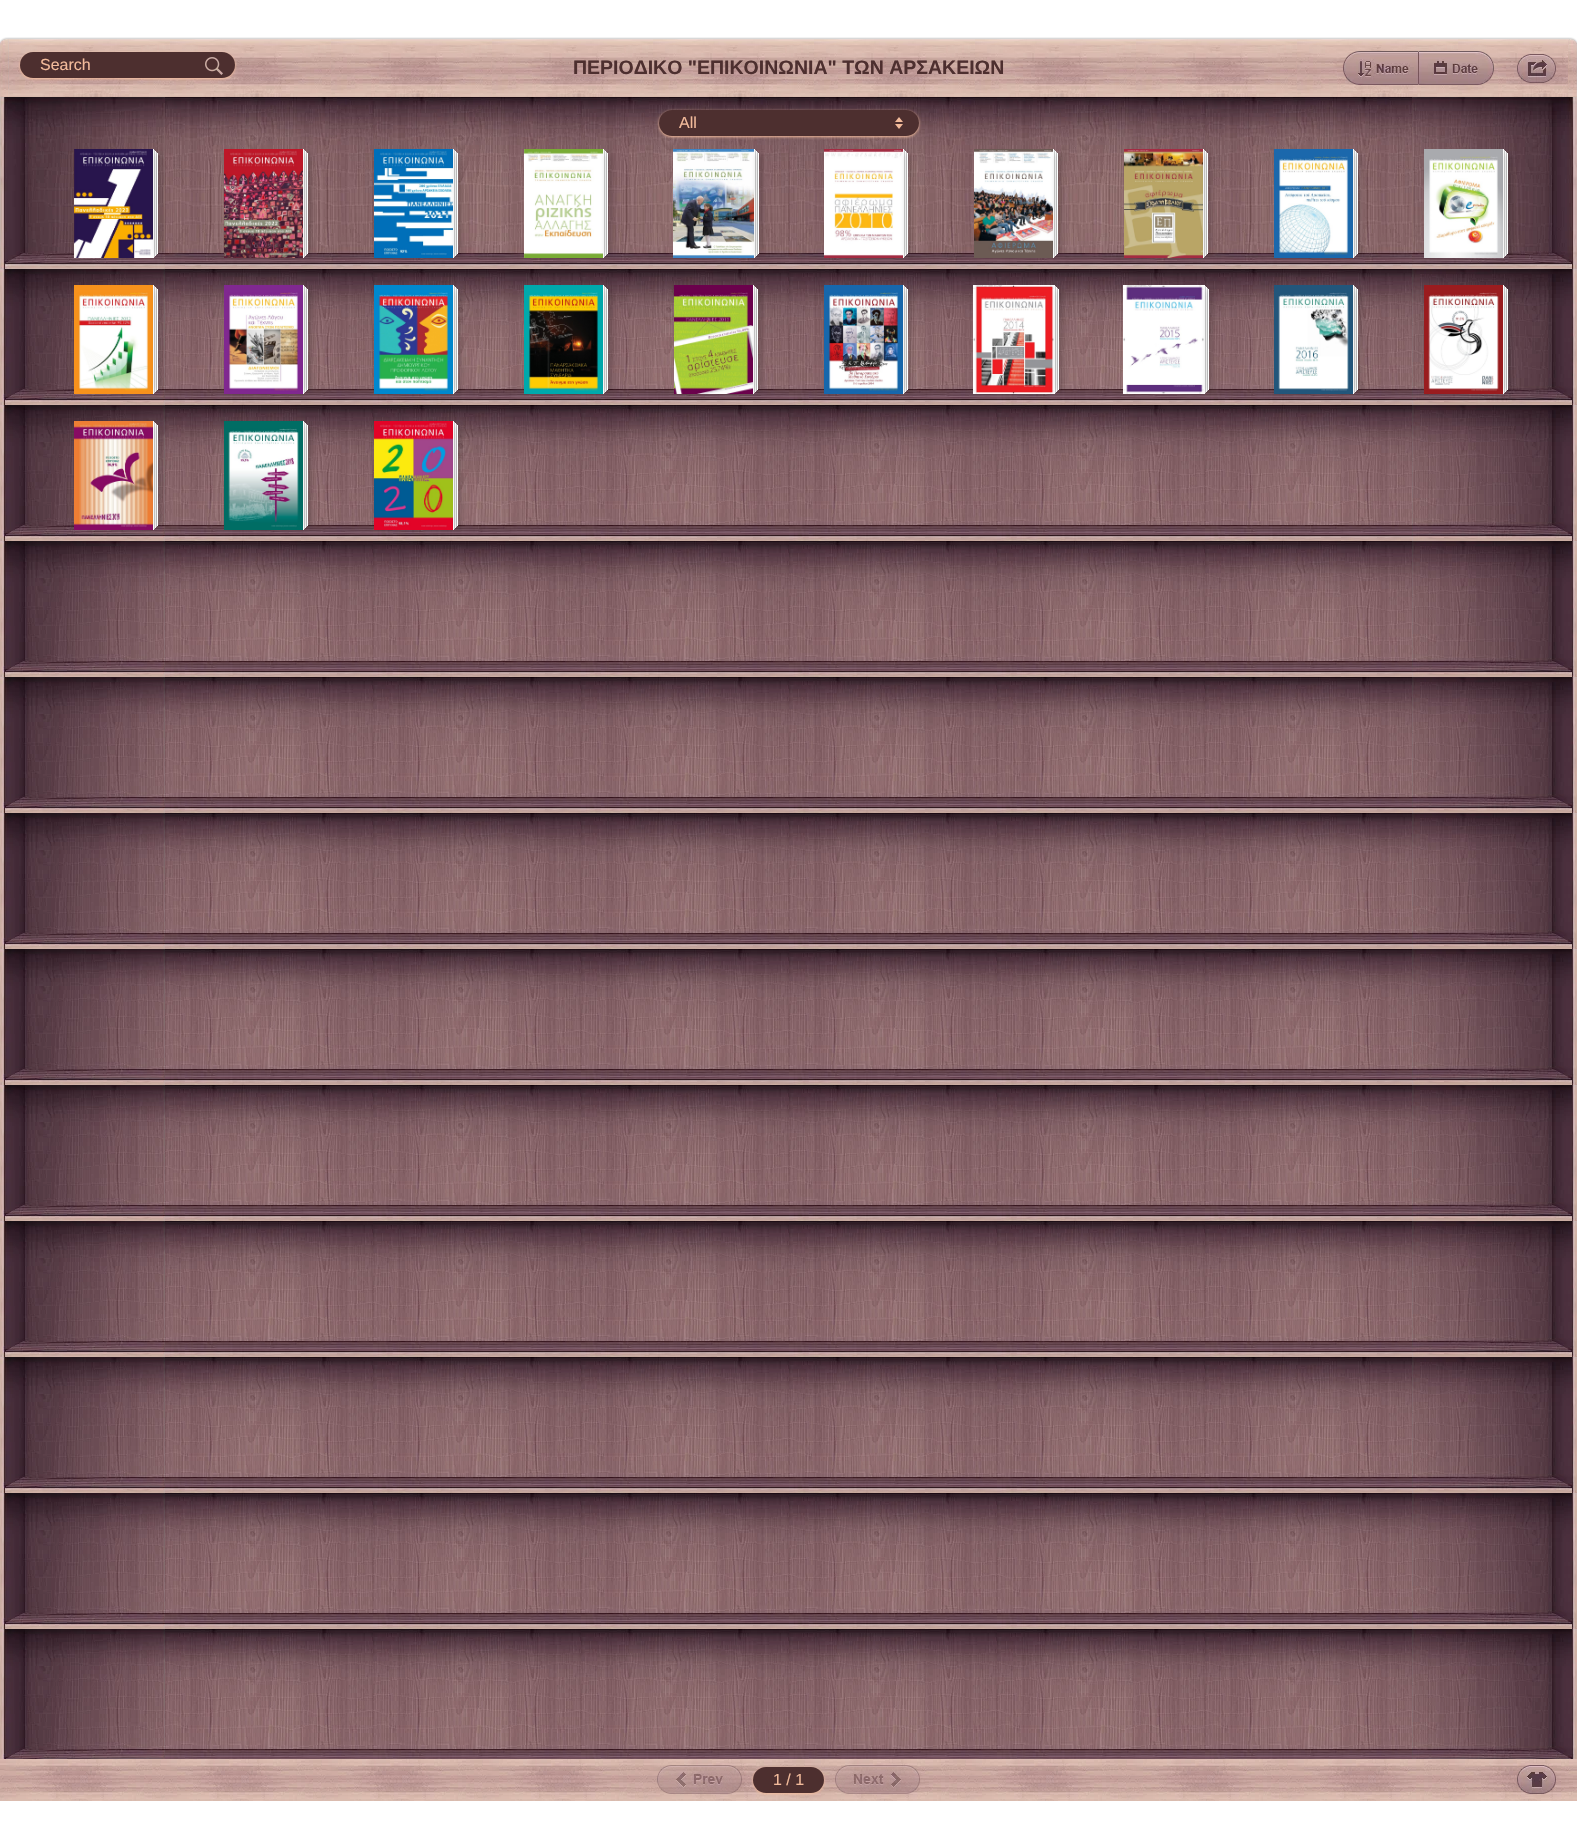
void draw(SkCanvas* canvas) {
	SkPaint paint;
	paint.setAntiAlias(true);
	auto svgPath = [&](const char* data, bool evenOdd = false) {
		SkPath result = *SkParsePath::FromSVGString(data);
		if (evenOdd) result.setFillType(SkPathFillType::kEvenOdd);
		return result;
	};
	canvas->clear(0xffffffff);
	canvas->drawImageRect(SkImages::DeferredFromEncodedData(SkData::MakeFromFileName("img1.png")), SkRect::MakeXYWH(0, 37, 9, 60), SkSamplingOptions());
	canvas->drawImageRect(SkImages::DeferredFromEncodedData(SkData::MakeFromFileName("img2.png")), SkRect::MakeXYWH(9, 37, 1559, 60), SkSamplingOptions());
	canvas->drawImageRect(SkImages::DeferredFromEncodedData(SkData::MakeFromFileName("img3.png")), SkRect::MakeXYWH(1568, 37, 9, 60), SkSamplingOptions());
	paint.setColor(0xfff3bb9b);
	paint.setMaskFilter(SkMaskFilter::MakeBlur(kNormal_SkBlurStyle, 1.5));
	canvas->drawRoundRect(SkRect::MakeXYWH(20, 53, 215, 26), 13, 13, paint);
	paint.setMaskFilter(nullptr);
	paint.setColor(0xff4d2f2f);
	canvas->drawRoundRect(SkRect::MakeXYWH(20, 52, 215, 26), 13, 13, paint);
	SkFont f1(fontMgr->matchFamilyStyle("Liberation Sans", SkFontStyle::Normal()), 16);
	f1.setSubpixel(true);
	paint.setColor(0xfff3bb9b);
	canvas->drawString("Search", 40, 70, f1, paint);
	canvas->drawImageRect(SkImages::DeferredFromEncodedData(SkData::MakeFromFileName("img4.png")), SkRect::MakeXYWH(205, 57, 18, 18), SkSamplingOptions());
	SkFont f2(fontMgr->matchFamilyStyle("Liberation Sans", SkFontStyle::Bold()), 19.5);
	f2.setSubpixel(true);
	paint.setColor(0xff4d2f2f);
	canvas->drawString("ΠΕΡΙΟΔΙΚΟ \"ΕΠΙΚΟΙΝΩΝΙΑ\" ΤΩΝ ΑΡΣΑΚΕΙΩΝ", 573, 74, f2, paint);
	canvas->drawImageRect(SkImages::DeferredFromEncodedData(SkData::MakeFromFileName("img5.png")), SkRect::MakeXYWH(1343, 51, 76, 34), SkSamplingOptions());
	canvas->drawImageRect(SkImages::DeferredFromEncodedData(SkData::MakeFromFileName("img6.png")), SkRect::MakeXYWH(1419, 51, 75, 34), SkSamplingOptions());
	canvas->drawImageRect(SkImages::DeferredFromEncodedData(SkData::MakeFromFileName("img7.png")), SkRect::MakeXYWH(1517, 54, 39, 29), SkSamplingOptions());
	canvas->drawImageRect(SkImages::DeferredFromEncodedData(SkData::MakeFromFileName("img8.png")), SkRect::MakeXYWH(0, 97, 165, 172), SkSamplingOptions());
	canvas->drawImageRect(SkImages::DeferredFromEncodedData(SkData::MakeFromFileName("img9.png")), SkRect::MakeXYWH(165, 97, 1247, 172), SkSamplingOptions());
	canvas->drawImageRect(SkImages::DeferredFromEncodedData(SkData::MakeFromFileName("img10.png")), SkRect::MakeXYWH(1412, 97, 165, 172), SkSamplingOptions());
	canvas->drawImageRect(SkImages::DeferredFromEncodedData(SkData::MakeFromFileName("img11.png")), SkRect::MakeXYWH(0, 269, 165, 136), SkSamplingOptions());
	canvas->drawImageRect(SkImages::DeferredFromEncodedData(SkData::MakeFromFileName("img12.png")), SkRect::MakeXYWH(165, 269, 1247, 136), SkSamplingOptions());
	canvas->drawImageRect(SkImages::DeferredFromEncodedData(SkData::MakeFromFileName("img13.png")), SkRect::MakeXYWH(1412, 269, 165, 136), SkSamplingOptions());
	canvas->drawImageRect(SkImages::DeferredFromEncodedData(SkData::MakeFromFileName("img11.png")), SkRect::MakeXYWH(0, 405, 165, 136), SkSamplingOptions());
	canvas->drawImageRect(SkImages::DeferredFromEncodedData(SkData::MakeFromFileName("img12.png")), SkRect::MakeXYWH(165, 405, 1247, 136), SkSamplingOptions());
	canvas->drawImageRect(SkImages::DeferredFromEncodedData(SkData::MakeFromFileName("img13.png")), SkRect::MakeXYWH(1412, 405, 165, 136), SkSamplingOptions());
	canvas->drawImageRect(SkImages::DeferredFromEncodedData(SkData::MakeFromFileName("img11.png")), SkRect::MakeXYWH(0, 541, 165, 136), SkSamplingOptions());
	canvas->drawImageRect(SkImages::DeferredFromEncodedData(SkData::MakeFromFileName("img12.png")), SkRect::MakeXYWH(165, 541, 1247, 136), SkSamplingOptions());
	canvas->drawImageRect(SkImages::DeferredFromEncodedData(SkData::MakeFromFileName("img13.png")), SkRect::MakeXYWH(1412, 541, 165, 136), SkSamplingOptions());
	canvas->drawImageRect(SkImages::DeferredFromEncodedData(SkData::MakeFromFileName("img11.png")), SkRect::MakeXYWH(0, 677, 165, 136), SkSamplingOptions());
	canvas->drawImageRect(SkImages::DeferredFromEncodedData(SkData::MakeFromFileName("img12.png")), SkRect::MakeXYWH(165, 677, 1247, 136), SkSamplingOptions());
	canvas->drawImageRect(SkImages::DeferredFromEncodedData(SkData::MakeFromFileName("img13.png")), SkRect::MakeXYWH(1412, 677, 165, 136), SkSamplingOptions());
	canvas->drawImageRect(SkImages::DeferredFromEncodedData(SkData::MakeFromFileName("img11.png")), SkRect::MakeXYWH(0, 813, 165, 136), SkSamplingOptions());
	canvas->drawImageRect(SkImages::DeferredFromEncodedData(SkData::MakeFromFileName("img12.png")), SkRect::MakeXYWH(165, 813, 1247, 136), SkSamplingOptions());
	canvas->drawImageRect(SkImages::DeferredFromEncodedData(SkData::MakeFromFileName("img13.png")), SkRect::MakeXYWH(1412, 813, 165, 136), SkSamplingOptions());
	canvas->drawImageRect(SkImages::DeferredFromEncodedData(SkData::MakeFromFileName("img11.png")), SkRect::MakeXYWH(0, 949, 165, 136), SkSamplingOptions());
	canvas->drawImageRect(SkImages::DeferredFromEncodedData(SkData::MakeFromFileName("img12.png")), SkRect::MakeXYWH(165, 949, 1247, 136), SkSamplingOptions());
	canvas->drawImageRect(SkImages::DeferredFromEncodedData(SkData::MakeFromFileName("img13.png")), SkRect::MakeXYWH(1412, 949, 165, 136), SkSamplingOptions());
	canvas->drawImageRect(SkImages::DeferredFromEncodedData(SkData::MakeFromFileName("img11.png")), SkRect::MakeXYWH(0, 1085, 165, 136), SkSamplingOptions());
	canvas->drawImageRect(SkImages::DeferredFromEncodedData(SkData::MakeFromFileName("img12.png")), SkRect::MakeXYWH(165, 1085, 1247, 136), SkSamplingOptions());
	canvas->drawImageRect(SkImages::DeferredFromEncodedData(SkData::MakeFromFileName("img13.png")), SkRect::MakeXYWH(1412, 1085, 165, 136), SkSamplingOptions());
	canvas->drawImageRect(SkImages::DeferredFromEncodedData(SkData::MakeFromFileName("img11.png")), SkRect::MakeXYWH(0, 1221, 165, 136), SkSamplingOptions());
	canvas->drawImageRect(SkImages::DeferredFromEncodedData(SkData::MakeFromFileName("img12.png")), SkRect::MakeXYWH(165, 1221, 1247, 136), SkSamplingOptions());
	canvas->drawImageRect(SkImages::DeferredFromEncodedData(SkData::MakeFromFileName("img13.png")), SkRect::MakeXYWH(1412, 1221, 165, 136), SkSamplingOptions());
	canvas->drawImageRect(SkImages::DeferredFromEncodedData(SkData::MakeFromFileName("img11.png")), SkRect::MakeXYWH(0, 1357, 165, 136), SkSamplingOptions());
	canvas->drawImageRect(SkImages::DeferredFromEncodedData(SkData::MakeFromFileName("img12.png")), SkRect::MakeXYWH(165, 1357, 1247, 136), SkSamplingOptions());
	canvas->drawImageRect(SkImages::DeferredFromEncodedData(SkData::MakeFromFileName("img13.png")), SkRect::MakeXYWH(1412, 1357, 165, 136), SkSamplingOptions());
	canvas->drawImageRect(SkImages::DeferredFromEncodedData(SkData::MakeFromFileName("img11.png")), SkRect::MakeXYWH(0, 1493, 165, 136), SkSamplingOptions());
	canvas->drawImageRect(SkImages::DeferredFromEncodedData(SkData::MakeFromFileName("img12.png")), SkRect::MakeXYWH(165, 1493, 1247, 136), SkSamplingOptions());
	canvas->drawImageRect(SkImages::DeferredFromEncodedData(SkData::MakeFromFileName("img13.png")), SkRect::MakeXYWH(1412, 1493, 165, 136), SkSamplingOptions());
	canvas->drawImageRect(SkImages::DeferredFromEncodedData(SkData::MakeFromFileName("img14.png")), SkRect::MakeXYWH(0, 1629, 165, 130), SkSamplingOptions());
	canvas->drawImageRect(SkImages::DeferredFromEncodedData(SkData::MakeFromFileName("img15.png")), SkRect::MakeXYWH(165, 1629, 1247, 130), SkSamplingOptions());
	canvas->drawImageRect(SkImages::DeferredFromEncodedData(SkData::MakeFromFileName("img16.png")), SkRect::MakeXYWH(1412, 1629, 165, 130), SkSamplingOptions());
	paint.setColor(0xfff3bb9b);
	paint.setMaskFilter(SkMaskFilter::MakeBlur(kNormal_SkBlurStyle, 1.5));
	canvas->drawRoundRect(SkRect::MakeXYWH(659, 111, 260, 26), 13, 13, paint);
	paint.setMaskFilter(nullptr);
	paint.setColor(0xff4d2f2f);
	canvas->drawRoundRect(SkRect::MakeXYWH(659, 110, 260, 26), 13, 13, paint);
	paint.setColor(0xfff3bb9b);
	canvas->drawString("All", 679, 128, f1, paint);
	canvas->drawPath(svgPath("M903 122H895L899 117ZM895 124H903L899 129Z"), paint);
	canvas->drawImageRect(SkImages::DeferredFromEncodedData(SkData::MakeFromFileName("img17.png")), SkRect::MakeXYWH(74, 149, 79, 109), SkSamplingOptions());
	paint.setColor(0xffcccccc);
	canvas->drawRect(SkRect::MakeXYWH(154, 150, 1, 107), paint);
	paint.setColor(0xffffffff);
	canvas->drawRect(SkRect::MakeXYWH(155, 151, 1, 105), paint);
	paint.setColor(0xffcccccc);
	canvas->drawRect(SkRect::MakeXYWH(156, 152, 1, 103), paint);
	paint.setColor(0xffffffff);
	canvas->drawRect(SkRect::MakeXYWH(153, 149, 1, 109), paint);
	paint.setColor(0xff000000);
	paint.setMaskFilter(SkMaskFilter::MakeBlur(kNormal_SkBlurStyle, 3));
	canvas->drawRect(SkRect::MakeXYWH(158, 154, 1, 101), paint);
	paint.setMaskFilter(nullptr);
	paint.setColor(0xffffffff);
	canvas->drawRect(SkRect::MakeXYWH(157, 153, 1, 101), paint);
	canvas->drawImageRect(SkImages::DeferredFromEncodedData(SkData::MakeFromFileName("img18.png")), SkRect::MakeXYWH(224, 149, 79, 109), SkSamplingOptions());
	paint.setColor(0xffcccccc);
	canvas->drawRect(SkRect::MakeXYWH(304, 150, 1, 107), paint);
	paint.setColor(0xffffffff);
	canvas->drawRect(SkRect::MakeXYWH(305, 151, 1, 105), paint);
	paint.setColor(0xffcccccc);
	canvas->drawRect(SkRect::MakeXYWH(306, 152, 1, 103), paint);
	paint.setColor(0xffffffff);
	canvas->drawRect(SkRect::MakeXYWH(303, 149, 1, 109), paint);
	paint.setColor(0xff000000);
	paint.setMaskFilter(SkMaskFilter::MakeBlur(kNormal_SkBlurStyle, 3));
	canvas->drawRect(SkRect::MakeXYWH(308, 154, 1, 101), paint);
	paint.setMaskFilter(nullptr);
	paint.setColor(0xffffffff);
	canvas->drawRect(SkRect::MakeXYWH(307, 153, 1, 101), paint);
	canvas->drawImageRect(SkImages::DeferredFromEncodedData(SkData::MakeFromFileName("img19.png")), SkRect::MakeXYWH(374, 149, 79, 109), SkSamplingOptions());
	paint.setColor(0xffcccccc);
	canvas->drawRect(SkRect::MakeXYWH(454, 150, 1, 107), paint);
	paint.setColor(0xffffffff);
	canvas->drawRect(SkRect::MakeXYWH(455, 151, 1, 105), paint);
	paint.setColor(0xffcccccc);
	canvas->drawRect(SkRect::MakeXYWH(456, 152, 1, 103), paint);
	paint.setColor(0xffffffff);
	canvas->drawRect(SkRect::MakeXYWH(453, 149, 1, 109), paint);
	paint.setColor(0xff000000);
	paint.setMaskFilter(SkMaskFilter::MakeBlur(kNormal_SkBlurStyle, 3));
	canvas->drawRect(SkRect::MakeXYWH(458, 154, 1, 101), paint);
	paint.setMaskFilter(nullptr);
	paint.setColor(0xffffffff);
	canvas->drawRect(SkRect::MakeXYWH(457, 153, 1, 101), paint);
	canvas->drawImageRect(SkImages::DeferredFromEncodedData(SkData::MakeFromFileName("img20.png")), SkRect::MakeXYWH(524, 149, 79, 109), SkSamplingOptions());
	paint.setColor(0xffcccccc);
	canvas->drawRect(SkRect::MakeXYWH(604, 150, 1, 107), paint);
	paint.setColor(0xffffffff);
	canvas->drawRect(SkRect::MakeXYWH(605, 151, 1, 105), paint);
	paint.setColor(0xffcccccc);
	canvas->drawRect(SkRect::MakeXYWH(606, 152, 1, 103), paint);
	paint.setColor(0xffffffff);
	canvas->drawRect(SkRect::MakeXYWH(603, 149, 1, 109), paint);
	paint.setColor(0xff000000);
	paint.setMaskFilter(SkMaskFilter::MakeBlur(kNormal_SkBlurStyle, 3));
	canvas->drawRect(SkRect::MakeXYWH(608, 154, 1, 101), paint);
	paint.setMaskFilter(nullptr);
	paint.setColor(0xffffffff);
	canvas->drawRect(SkRect::MakeXYWH(607, 153, 1, 101), paint);
	canvas->drawImageRect(SkImages::DeferredFromEncodedData(SkData::MakeFromFileName("img21.png")), SkRect::MakeXYWH(673, 149, 81, 109), SkSamplingOptions());
	paint.setColor(0xffcccccc);
	canvas->drawRect(SkRect::MakeXYWH(755, 150, 1, 107), paint);
	paint.setColor(0xffffffff);
	canvas->drawRect(SkRect::MakeXYWH(756, 151, 1, 105), paint);
	paint.setColor(0xffcccccc);
	canvas->drawRect(SkRect::MakeXYWH(757, 152, 1, 103), paint);
	paint.setColor(0xffffffff);
	canvas->drawRect(SkRect::MakeXYWH(754, 149, 1, 109), paint);
	paint.setColor(0xff000000);
	paint.setMaskFilter(SkMaskFilter::MakeBlur(kNormal_SkBlurStyle, 3));
	canvas->drawRect(SkRect::MakeXYWH(759, 154, 1, 101), paint);
	paint.setMaskFilter(nullptr);
	paint.setColor(0xffffffff);
	canvas->drawRect(SkRect::MakeXYWH(758, 153, 1, 101), paint);
	canvas->drawImageRect(SkImages::DeferredFromEncodedData(SkData::MakeFromFileName("img22.png")), SkRect::MakeXYWH(824, 149, 79, 109), SkSamplingOptions());
	paint.setColor(0xffcccccc);
	canvas->drawRect(SkRect::MakeXYWH(904, 150, 1, 107), paint);
	paint.setColor(0xffffffff);
	canvas->drawRect(SkRect::MakeXYWH(905, 151, 1, 105), paint);
	paint.setColor(0xffcccccc);
	canvas->drawRect(SkRect::MakeXYWH(906, 152, 1, 103), paint);
	paint.setColor(0xffffffff);
	canvas->drawRect(SkRect::MakeXYWH(903, 149, 1, 109), paint);
	paint.setColor(0xff000000);
	paint.setMaskFilter(SkMaskFilter::MakeBlur(kNormal_SkBlurStyle, 3));
	canvas->drawRect(SkRect::MakeXYWH(908, 154, 1, 101), paint);
	paint.setMaskFilter(nullptr);
	paint.setColor(0xffffffff);
	canvas->drawRect(SkRect::MakeXYWH(907, 153, 1, 101), paint);
	canvas->drawImageRect(SkImages::DeferredFromEncodedData(SkData::MakeFromFileName("img23.png")), SkRect::MakeXYWH(974, 149, 79, 109), SkSamplingOptions());
	paint.setColor(0xffcccccc);
	canvas->drawRect(SkRect::MakeXYWH(1054, 150, 1, 107), paint);
	paint.setColor(0xffffffff);
	canvas->drawRect(SkRect::MakeXYWH(1055, 151, 1, 105), paint);
	paint.setColor(0xffcccccc);
	canvas->drawRect(SkRect::MakeXYWH(1056, 152, 1, 103), paint);
	paint.setColor(0xffffffff);
	canvas->drawRect(SkRect::MakeXYWH(1053, 149, 1, 109), paint);
	paint.setColor(0xff000000);
	paint.setMaskFilter(SkMaskFilter::MakeBlur(kNormal_SkBlurStyle, 3));
	canvas->drawRect(SkRect::MakeXYWH(1058, 154, 1, 101), paint);
	paint.setMaskFilter(nullptr);
	paint.setColor(0xffffffff);
	canvas->drawRect(SkRect::MakeXYWH(1057, 153, 1, 101), paint);
	canvas->drawImageRect(SkImages::DeferredFromEncodedData(SkData::MakeFromFileName("img24.png")), SkRect::MakeXYWH(1124, 149, 79, 109), SkSamplingOptions());
	paint.setColor(0xffcccccc);
	canvas->drawRect(SkRect::MakeXYWH(1204, 150, 1, 107), paint);
	paint.setColor(0xffffffff);
	canvas->drawRect(SkRect::MakeXYWH(1205, 151, 1, 105), paint);
	paint.setColor(0xffcccccc);
	canvas->drawRect(SkRect::MakeXYWH(1206, 152, 1, 103), paint);
	paint.setColor(0xffffffff);
	canvas->drawRect(SkRect::MakeXYWH(1203, 149, 1, 109), paint);
	paint.setColor(0xff000000);
	paint.setMaskFilter(SkMaskFilter::MakeBlur(kNormal_SkBlurStyle, 3));
	canvas->drawRect(SkRect::MakeXYWH(1208, 154, 1, 101), paint);
	paint.setMaskFilter(nullptr);
	paint.setColor(0xffffffff);
	canvas->drawRect(SkRect::MakeXYWH(1207, 153, 1, 101), paint);
	canvas->drawImageRect(SkImages::DeferredFromEncodedData(SkData::MakeFromFileName("img25.png")), SkRect::MakeXYWH(1274, 149, 79, 109), SkSamplingOptions());
	paint.setColor(0xffcccccc);
	canvas->drawRect(SkRect::MakeXYWH(1354, 150, 1, 107), paint);
	paint.setColor(0xffffffff);
	canvas->drawRect(SkRect::MakeXYWH(1355, 151, 1, 105), paint);
	paint.setColor(0xffcccccc);
	canvas->drawRect(SkRect::MakeXYWH(1356, 152, 1, 103), paint);
	paint.setColor(0xffffffff);
	canvas->drawRect(SkRect::MakeXYWH(1353, 149, 1, 109), paint);
	paint.setColor(0xff000000);
	paint.setMaskFilter(SkMaskFilter::MakeBlur(kNormal_SkBlurStyle, 3));
	canvas->drawRect(SkRect::MakeXYWH(1358, 154, 1, 101), paint);
	paint.setMaskFilter(nullptr);
	paint.setColor(0xffffffff);
	canvas->drawRect(SkRect::MakeXYWH(1357, 153, 1, 101), paint);
	canvas->drawImageRect(SkImages::DeferredFromEncodedData(SkData::MakeFromFileName("img26.png")), SkRect::MakeXYWH(1424, 149, 79, 109), SkSamplingOptions());
	paint.setColor(0xffcccccc);
	canvas->drawRect(SkRect::MakeXYWH(1504, 150, 1, 107), paint);
	paint.setColor(0xffffffff);
	canvas->drawRect(SkRect::MakeXYWH(1505, 151, 1, 105), paint);
	paint.setColor(0xffcccccc);
	canvas->drawRect(SkRect::MakeXYWH(1506, 152, 1, 103), paint);
	paint.setColor(0xffffffff);
	canvas->drawRect(SkRect::MakeXYWH(1503, 149, 1, 109), paint);
	paint.setColor(0xff000000);
	paint.setMaskFilter(SkMaskFilter::MakeBlur(kNormal_SkBlurStyle, 3));
	canvas->drawRect(SkRect::MakeXYWH(1508, 154, 1, 101), paint);
	paint.setMaskFilter(nullptr);
	paint.setColor(0xffffffff);
	canvas->drawRect(SkRect::MakeXYWH(1507, 153, 1, 101), paint);
	canvas->drawImageRect(SkImages::DeferredFromEncodedData(SkData::MakeFromFileName("img27.png")), SkRect::MakeXYWH(74, 285, 79, 109), SkSamplingOptions());
	paint.setColor(0xffcccccc);
	canvas->drawRect(SkRect::MakeXYWH(154, 286, 1, 107), paint);
	paint.setColor(0xffffffff);
	canvas->drawRect(SkRect::MakeXYWH(155, 287, 1, 105), paint);
	paint.setColor(0xffcccccc);
	canvas->drawRect(SkRect::MakeXYWH(156, 288, 1, 103), paint);
	paint.setColor(0xffffffff);
	canvas->drawRect(SkRect::MakeXYWH(153, 285, 1, 109), paint);
	paint.setColor(0xff000000);
	paint.setMaskFilter(SkMaskFilter::MakeBlur(kNormal_SkBlurStyle, 3));
	canvas->drawRect(SkRect::MakeXYWH(158, 290, 1, 101), paint);
	paint.setMaskFilter(nullptr);
	paint.setColor(0xffffffff);
	canvas->drawRect(SkRect::MakeXYWH(157, 289, 1, 101), paint);
	canvas->drawImageRect(SkImages::DeferredFromEncodedData(SkData::MakeFromFileName("img28.png")), SkRect::MakeXYWH(224, 285, 79, 109), SkSamplingOptions());
	paint.setColor(0xffcccccc);
	canvas->drawRect(SkRect::MakeXYWH(304, 286, 1, 107), paint);
	paint.setColor(0xffffffff);
	canvas->drawRect(SkRect::MakeXYWH(305, 287, 1, 105), paint);
	paint.setColor(0xffcccccc);
	canvas->drawRect(SkRect::MakeXYWH(306, 288, 1, 103), paint);
	paint.setColor(0xffffffff);
	canvas->drawRect(SkRect::MakeXYWH(303, 285, 1, 109), paint);
	paint.setColor(0xff000000);
	paint.setMaskFilter(SkMaskFilter::MakeBlur(kNormal_SkBlurStyle, 3));
	canvas->drawRect(SkRect::MakeXYWH(308, 290, 1, 101), paint);
	paint.setMaskFilter(nullptr);
	paint.setColor(0xffffffff);
	canvas->drawRect(SkRect::MakeXYWH(307, 289, 1, 101), paint);
	canvas->drawImageRect(SkImages::DeferredFromEncodedData(SkData::MakeFromFileName("img29.png")), SkRect::MakeXYWH(374, 285, 79, 109), SkSamplingOptions());
	paint.setColor(0xffcccccc);
	canvas->drawRect(SkRect::MakeXYWH(454, 286, 1, 107), paint);
	paint.setColor(0xffffffff);
	canvas->drawRect(SkRect::MakeXYWH(455, 287, 1, 105), paint);
	paint.setColor(0xffcccccc);
	canvas->drawRect(SkRect::MakeXYWH(456, 288, 1, 103), paint);
	paint.setColor(0xffffffff);
	canvas->drawRect(SkRect::MakeXYWH(453, 285, 1, 109), paint);
	paint.setColor(0xff000000);
	paint.setMaskFilter(SkMaskFilter::MakeBlur(kNormal_SkBlurStyle, 3));
	canvas->drawRect(SkRect::MakeXYWH(458, 290, 1, 101), paint);
	paint.setMaskFilter(nullptr);
	paint.setColor(0xffffffff);
	canvas->drawRect(SkRect::MakeXYWH(457, 289, 1, 101), paint);
	canvas->drawImageRect(SkImages::DeferredFromEncodedData(SkData::MakeFromFileName("img30.png")), SkRect::MakeXYWH(524, 285, 79, 109), SkSamplingOptions());
	paint.setColor(0xffcccccc);
	canvas->drawRect(SkRect::MakeXYWH(604, 286, 1, 107), paint);
	paint.setColor(0xffffffff);
	canvas->drawRect(SkRect::MakeXYWH(605, 287, 1, 105), paint);
	paint.setColor(0xffcccccc);
	canvas->drawRect(SkRect::MakeXYWH(606, 288, 1, 103), paint);
	paint.setColor(0xffffffff);
	canvas->drawRect(SkRect::MakeXYWH(603, 285, 1, 109), paint);
	paint.setColor(0xff000000);
	paint.setMaskFilter(SkMaskFilter::MakeBlur(kNormal_SkBlurStyle, 3));
	canvas->drawRect(SkRect::MakeXYWH(608, 290, 1, 101), paint);
	paint.setMaskFilter(nullptr);
	paint.setColor(0xffffffff);
	canvas->drawRect(SkRect::MakeXYWH(607, 289, 1, 101), paint);
	canvas->drawImageRect(SkImages::DeferredFromEncodedData(SkData::MakeFromFileName("img31.png")), SkRect::MakeXYWH(674, 285, 79, 109), SkSamplingOptions());
	paint.setColor(0xffcccccc);
	canvas->drawRect(SkRect::MakeXYWH(754, 286, 1, 107), paint);
	paint.setColor(0xffffffff);
	canvas->drawRect(SkRect::MakeXYWH(755, 287, 1, 105), paint);
	paint.setColor(0xffcccccc);
	canvas->drawRect(SkRect::MakeXYWH(756, 288, 1, 103), paint);
	paint.setColor(0xffffffff);
	canvas->drawRect(SkRect::MakeXYWH(753, 285, 1, 109), paint);
	paint.setColor(0xff000000);
	paint.setMaskFilter(SkMaskFilter::MakeBlur(kNormal_SkBlurStyle, 3));
	canvas->drawRect(SkRect::MakeXYWH(758, 290, 1, 101), paint);
	paint.setMaskFilter(nullptr);
	paint.setColor(0xffffffff);
	canvas->drawRect(SkRect::MakeXYWH(757, 289, 1, 101), paint);
	canvas->drawImageRect(SkImages::DeferredFromEncodedData(SkData::MakeFromFileName("img32.png")), SkRect::MakeXYWH(824, 285, 79, 109), SkSamplingOptions());
	paint.setColor(0xffcccccc);
	canvas->drawRect(SkRect::MakeXYWH(904, 286, 1, 107), paint);
	paint.setColor(0xffffffff);
	canvas->drawRect(SkRect::MakeXYWH(905, 287, 1, 105), paint);
	paint.setColor(0xffcccccc);
	canvas->drawRect(SkRect::MakeXYWH(906, 288, 1, 103), paint);
	paint.setColor(0xffffffff);
	canvas->drawRect(SkRect::MakeXYWH(903, 285, 1, 109), paint);
	paint.setColor(0xff000000);
	paint.setMaskFilter(SkMaskFilter::MakeBlur(kNormal_SkBlurStyle, 3));
	canvas->drawRect(SkRect::MakeXYWH(908, 290, 1, 101), paint);
	paint.setMaskFilter(nullptr);
	paint.setColor(0xffffffff);
	canvas->drawRect(SkRect::MakeXYWH(907, 289, 1, 101), paint);
	canvas->drawImageRect(SkImages::DeferredFromEncodedData(SkData::MakeFromFileName("img33.png")), SkRect::MakeXYWH(973, 285, 81, 109), SkSamplingOptions());
	paint.setColor(0xffcccccc);
	canvas->drawRect(SkRect::MakeXYWH(1055, 286, 1, 107), paint);
	paint.setColor(0xffffffff);
	canvas->drawRect(SkRect::MakeXYWH(1056, 287, 1, 105), paint);
	paint.setColor(0xffcccccc);
	canvas->drawRect(SkRect::MakeXYWH(1057, 288, 1, 103), paint);
	paint.setColor(0xffffffff);
	canvas->drawRect(SkRect::MakeXYWH(1054, 285, 1, 109), paint);
	paint.setColor(0xff000000);
	paint.setMaskFilter(SkMaskFilter::MakeBlur(kNormal_SkBlurStyle, 3));
	canvas->drawRect(SkRect::MakeXYWH(1059, 290, 1, 101), paint);
	paint.setMaskFilter(nullptr);
	paint.setColor(0xffffffff);
	canvas->drawRect(SkRect::MakeXYWH(1058, 289, 1, 101), paint);
	canvas->drawImageRect(SkImages::DeferredFromEncodedData(SkData::MakeFromFileName("img34.png")), SkRect::MakeXYWH(1123, 285, 81, 109), SkSamplingOptions());
	paint.setColor(0xffcccccc);
	canvas->drawRect(SkRect::MakeXYWH(1205, 286, 1, 107), paint);
	paint.setColor(0xffffffff);
	canvas->drawRect(SkRect::MakeXYWH(1206, 287, 1, 105), paint);
	paint.setColor(0xffcccccc);
	canvas->drawRect(SkRect::MakeXYWH(1207, 288, 1, 103), paint);
	paint.setColor(0xffffffff);
	canvas->drawRect(SkRect::MakeXYWH(1204, 285, 1, 109), paint);
	paint.setColor(0xff000000);
	paint.setMaskFilter(SkMaskFilter::MakeBlur(kNormal_SkBlurStyle, 3));
	canvas->drawRect(SkRect::MakeXYWH(1209, 290, 1, 101), paint);
	paint.setMaskFilter(nullptr);
	paint.setColor(0xffffffff);
	canvas->drawRect(SkRect::MakeXYWH(1208, 289, 1, 101), paint);
	canvas->drawImageRect(SkImages::DeferredFromEncodedData(SkData::MakeFromFileName("img35.png")), SkRect::MakeXYWH(1274, 285, 79, 109), SkSamplingOptions());
	paint.setColor(0xffcccccc);
	canvas->drawRect(SkRect::MakeXYWH(1354, 286, 1, 107), paint);
	paint.setColor(0xffffffff);
	canvas->drawRect(SkRect::MakeXYWH(1355, 287, 1, 105), paint);
	paint.setColor(0xffcccccc);
	canvas->drawRect(SkRect::MakeXYWH(1356, 288, 1, 103), paint);
	paint.setColor(0xffffffff);
	canvas->drawRect(SkRect::MakeXYWH(1353, 285, 1, 109), paint);
	paint.setColor(0xff000000);
	paint.setMaskFilter(SkMaskFilter::MakeBlur(kNormal_SkBlurStyle, 3));
	canvas->drawRect(SkRect::MakeXYWH(1358, 290, 1, 101), paint);
	paint.setMaskFilter(nullptr);
	paint.setColor(0xffffffff);
	canvas->drawRect(SkRect::MakeXYWH(1357, 289, 1, 101), paint);
	canvas->drawImageRect(SkImages::DeferredFromEncodedData(SkData::MakeFromFileName("img36.png")), SkRect::MakeXYWH(1424, 285, 79, 109), SkSamplingOptions());
	paint.setColor(0xffcccccc);
	canvas->drawRect(SkRect::MakeXYWH(1504, 286, 1, 107), paint);
	paint.setColor(0xffffffff);
	canvas->drawRect(SkRect::MakeXYWH(1505, 287, 1, 105), paint);
	paint.setColor(0xffcccccc);
	canvas->drawRect(SkRect::MakeXYWH(1506, 288, 1, 103), paint);
	paint.setColor(0xffffffff);
	canvas->drawRect(SkRect::MakeXYWH(1503, 285, 1, 109), paint);
	paint.setColor(0xff000000);
	paint.setMaskFilter(SkMaskFilter::MakeBlur(kNormal_SkBlurStyle, 3));
	canvas->drawRect(SkRect::MakeXYWH(1508, 290, 1, 101), paint);
	paint.setMaskFilter(nullptr);
	paint.setColor(0xffffffff);
	canvas->drawRect(SkRect::MakeXYWH(1507, 289, 1, 101), paint);
	canvas->drawImageRect(SkImages::DeferredFromEncodedData(SkData::MakeFromFileName("img37.png")), SkRect::MakeXYWH(74, 421, 79, 109), SkSamplingOptions());
	paint.setColor(0xffcccccc);
	canvas->drawRect(SkRect::MakeXYWH(154, 422, 1, 107), paint);
	paint.setColor(0xffffffff);
	canvas->drawRect(SkRect::MakeXYWH(155, 423, 1, 105), paint);
	paint.setColor(0xffcccccc);
	canvas->drawRect(SkRect::MakeXYWH(156, 424, 1, 103), paint);
	paint.setColor(0xffffffff);
	canvas->drawRect(SkRect::MakeXYWH(153, 421, 1, 109), paint);
	paint.setColor(0xff000000);
	paint.setMaskFilter(SkMaskFilter::MakeBlur(kNormal_SkBlurStyle, 3));
	canvas->drawRect(SkRect::MakeXYWH(158, 426, 1, 101), paint);
	paint.setMaskFilter(nullptr);
	paint.setColor(0xffffffff);
	canvas->drawRect(SkRect::MakeXYWH(157, 425, 1, 101), paint);
	canvas->drawImageRect(SkImages::DeferredFromEncodedData(SkData::MakeFromFileName("img38.png")), SkRect::MakeXYWH(224, 421, 79, 109), SkSamplingOptions());
	paint.setColor(0xffcccccc);
	canvas->drawRect(SkRect::MakeXYWH(304, 422, 1, 107), paint);
	paint.setColor(0xffffffff);
	canvas->drawRect(SkRect::MakeXYWH(305, 423, 1, 105), paint);
	paint.setColor(0xffcccccc);
	canvas->drawRect(SkRect::MakeXYWH(306, 424, 1, 103), paint);
	paint.setColor(0xffffffff);
	canvas->drawRect(SkRect::MakeXYWH(303, 421, 1, 109), paint);
	paint.setColor(0xff000000);
	paint.setMaskFilter(SkMaskFilter::MakeBlur(kNormal_SkBlurStyle, 3));
	canvas->drawRect(SkRect::MakeXYWH(308, 426, 1, 101), paint);
	paint.setMaskFilter(nullptr);
	paint.setColor(0xffffffff);
	canvas->drawRect(SkRect::MakeXYWH(307, 425, 1, 101), paint);
	canvas->drawImageRect(SkImages::DeferredFromEncodedData(SkData::MakeFromFileName("img39.png")), SkRect::MakeXYWH(374, 421, 79, 109), SkSamplingOptions());
	paint.setColor(0xffcccccc);
	canvas->drawRect(SkRect::MakeXYWH(454, 422, 1, 107), paint);
	paint.setColor(0xffffffff);
	canvas->drawRect(SkRect::MakeXYWH(455, 423, 1, 105), paint);
	paint.setColor(0xffcccccc);
	canvas->drawRect(SkRect::MakeXYWH(456, 424, 1, 103), paint);
	paint.setColor(0xffffffff);
	canvas->drawRect(SkRect::MakeXYWH(453, 421, 1, 109), paint);
	paint.setColor(0xff000000);
	paint.setMaskFilter(SkMaskFilter::MakeBlur(kNormal_SkBlurStyle, 3));
	canvas->drawRect(SkRect::MakeXYWH(458, 426, 1, 101), paint);
	paint.setMaskFilter(nullptr);
	paint.setColor(0xffffffff);
	canvas->drawRect(SkRect::MakeXYWH(457, 425, 1, 101), paint);
	canvas->drawImageRect(SkImages::DeferredFromEncodedData(SkData::MakeFromFileName("img40.png")), SkRect::MakeXYWH(0, 1759, 1577, 42), SkSamplingOptions());
	canvas->drawImageRect(SkImages::DeferredFromEncodedData(SkData::MakeFromFileName("img41.png")), SkRect::MakeXYWH(657, 1765, 85, 29), SkSamplingOptions());
	paint.setColor(0xfff3bb9b);
	paint.setMaskFilter(SkMaskFilter::MakeBlur(kNormal_SkBlurStyle, 1.5));
	canvas->drawRoundRect(SkRect::MakeXYWH(753, 1768, 71, 26), 13, 13, paint);
	paint.setMaskFilter(nullptr);
	paint.setColor(0xff4d2f2f);
	canvas->drawRoundRect(SkRect::MakeXYWH(753, 1767, 71, 26), 13, 13, paint);
	paint.setColor(0xfff3bb9b);
	canvas->drawString("1 / 1", 773, 1785, f1, paint);
	canvas->drawImageRect(SkImages::DeferredFromEncodedData(SkData::MakeFromFileName("img42.png")), SkRect::MakeXYWH(835, 1765, 85, 29), SkSamplingOptions());
	canvas->drawImageRect(SkImages::DeferredFromEncodedData(SkData::MakeFromFileName("img43.png")), SkRect::MakeXYWH(1517, 1765, 39, 29), SkSamplingOptions());
}
